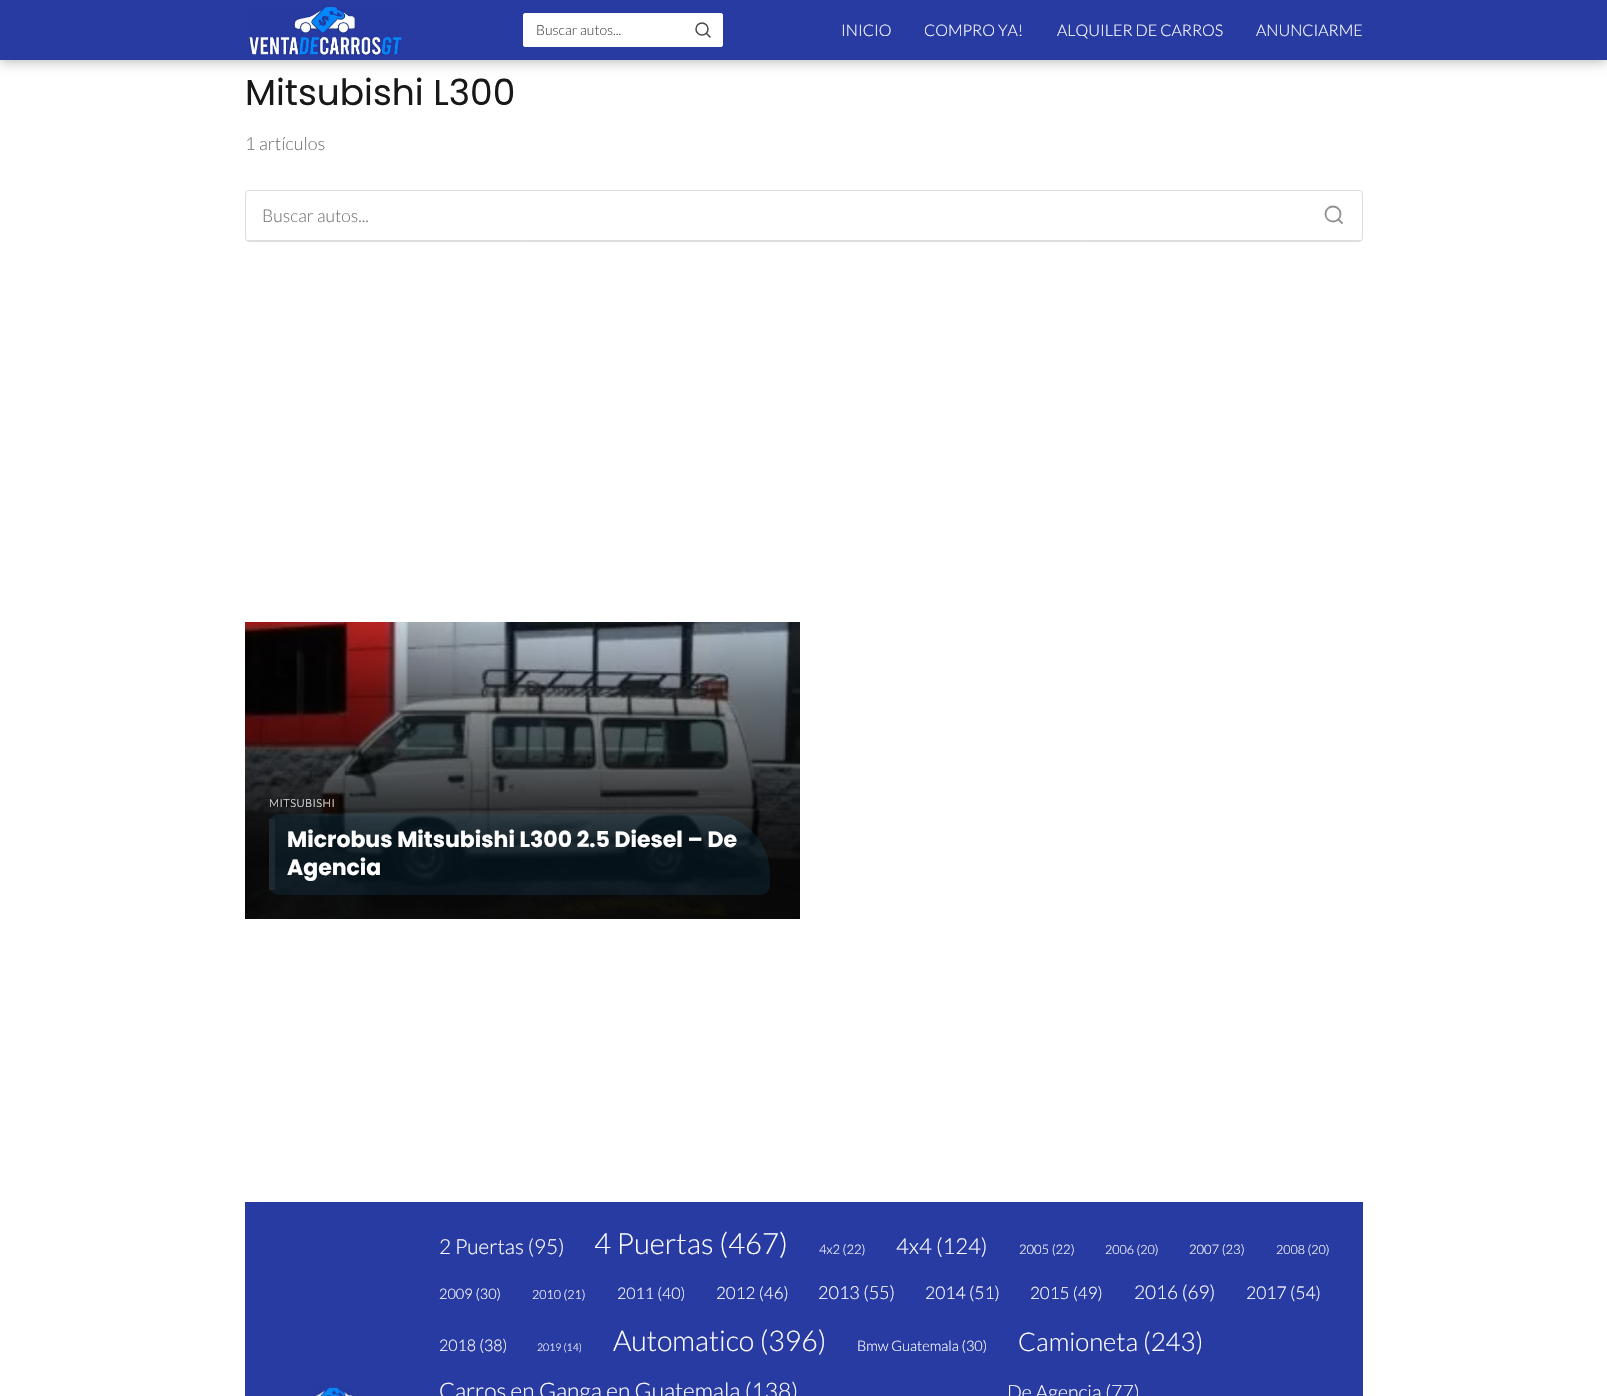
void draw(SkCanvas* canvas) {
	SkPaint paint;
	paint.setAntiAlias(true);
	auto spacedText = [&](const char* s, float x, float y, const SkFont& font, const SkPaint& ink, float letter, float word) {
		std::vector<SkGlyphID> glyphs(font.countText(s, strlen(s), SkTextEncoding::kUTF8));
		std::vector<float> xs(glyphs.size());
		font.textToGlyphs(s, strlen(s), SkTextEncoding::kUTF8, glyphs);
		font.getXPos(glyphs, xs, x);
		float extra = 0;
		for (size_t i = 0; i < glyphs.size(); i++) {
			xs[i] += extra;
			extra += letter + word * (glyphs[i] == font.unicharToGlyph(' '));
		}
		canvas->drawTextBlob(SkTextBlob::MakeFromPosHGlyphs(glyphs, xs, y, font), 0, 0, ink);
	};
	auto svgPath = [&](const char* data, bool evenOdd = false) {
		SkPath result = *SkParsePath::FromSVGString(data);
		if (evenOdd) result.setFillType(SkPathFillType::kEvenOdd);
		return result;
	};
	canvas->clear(0xffffffff);
	paint.setColor(0x4d000000);
	paint.setMaskFilter(SkMaskFilter::MakeBlur(kNormal_SkBlurStyle, 6));
	canvas->drawRect(SkRect::MakeXYWH(0, 1, 1607, 60), paint);
	paint.setMaskFilter(nullptr);
	paint.setColor(0xff283ba2);
	canvas->drawRect(SkRect::MakeXYWH(0, 0, 1607, 60), paint);
	canvas->drawImageRect(SkImages::DeferredFromEncodedData(SkData::MakeFromFileName("img1.png")), SkRect::MakeXYWH(249, 6, 153, 51), SkSamplingOptions());
	paint.setColor(0xffffffff);
	canvas->drawRoundRect(SkRect::MakeXYWH(523.5, 13.5, 199, 33), 1.5, 1.5, paint);
	paint.setStroke(true);
	paint.setStrokeWidth(1);
	canvas->drawRoundRect(SkRect::MakeXYWH(523.5, 13.5, 199, 33), 1.5, 1.5, paint);
	SkFont f1(fontMgr->matchFamilyStyle("Lato", SkFontStyle(300, SkFontStyle::kNormal_Width, SkFontStyle::kUpright_Slant)), 14);
	f1.setSubpixel(true);
	paint.setStroke(false);
	paint.setColor(0xff484848);
	canvas->drawString("Buscar autos...", 536, 35, f1, paint);
	paint.setStroke(true);
	paint.setStrokeWidth(1.5);
	canvas->drawCircle(702, 29, 6, paint);
	paint.setStrokeCap(SkPaint::kRound_Cap);
	paint.setStrokeJoin(SkPaint::kRound_Join);
	canvas->drawPath(svgPath("M710 37L706.5 33.5"), paint);
	SkFont f2(fontMgr->matchFamilyStyle("Lato", SkFontStyle(300, SkFontStyle::kNormal_Width, SkFontStyle::kUpright_Slant)), 16);
	f2.setSubpixel(true);
	paint.setStroke(false);
	paint.setColor(0xffffffff);
	canvas->drawString("INICIO", 841, 36, f2, paint);
	canvas->drawString("COMPRO YA!", 924, 36, f2, paint);
	canvas->drawString("ALQUILER DE CARROS", 1057, 36, f2, paint);
	canvas->drawString("ANUNCIARME", 1256, 36, f2, paint);
	SkFont f3(fontMgr->matchFamilyStyle("Poppins", SkFontStyle::Normal()), 36);
	f3.setSubpixel(true);
	paint.setColor(0xff181818);
	canvas->drawString("Mitsubishi L300", 245, 105, f3, paint);
	SkFont f4(fontMgr->matchFamilyStyle("Lato", SkFontStyle(300, SkFontStyle::kNormal_Width, SkFontStyle::kUpright_Slant)), 18);
	f4.setSubpixel(true);
	paint.setColor(0xff767676);
	canvas->drawString("1 artículos", 245, 150, f4, paint);
	paint.setStroke(true);
	paint.setStrokeWidth(1);
	paint.setStrokeCap(SkPaint::kButt_Cap);
	paint.setStrokeJoin(SkPaint::kMiter_Join);
	paint.setColor(0xffdddddd);
	canvas->drawRoundRect(SkRect::MakeXYWH(245.5, 190.5, 1117, 51), 3.5, 3.5, paint);
	paint.setStroke(false);
	canvas->drawRect(SkRect::MakeXYWH(247, 240, 1114, 1), paint);
	SkFont f5(fontMgr->matchFamilyStyle("Lato", SkFontStyle(300, SkFontStyle::kNormal_Width, SkFontStyle::kUpright_Slant)), 17.5);
	f5.setSubpixel(true);
	paint.setColor(0xff767676);
	canvas->drawString("Buscar autos...", 262, 222, f5, paint);
	paint.setStroke(true);
	paint.setStrokeWidth(1.8);
	paint.setColor(0xff919191);
	canvas->drawCircle(1333, 214, 7.5, paint);
	paint.setStrokeCap(SkPaint::kRound_Cap);
	paint.setStrokeJoin(SkPaint::kRound_Join);
	canvas->drawPath(svgPath("M1342 223L1338.5 219.5"), paint);
	canvas->drawImageRect(SkImages::DeferredFromEncodedData(SkData::MakeFromFileName("img2.png")), SkRect::MakeXYWH(245, 622, 555, 297), SkSamplingOptions());
	SkFont f6(fontMgr->matchFamilyStyle("Lato", SkFontStyle(300, SkFontStyle::kNormal_Width, SkFontStyle::kUpright_Slant)), 11);
	f6.setSubpixel(true);
	paint.setStroke(false);
	paint.setColor(0xffffffff);
	spacedText("MITSUBISHI", 269, 807, f6, paint, 0.5, 0);
	paint.setColor(0x262471a3);
	canvas->drawPath(svgPath("M279 814H710C743 814 770 841 770 874V885C770 890.5 765.5 895 760 895H279C273.5 895 269 890.5 269 885V824C269 818.5 273.5 814 279 814Z"), paint);
	paint.setColor(0xff1f2733);
	canvas->drawRect(SkRect::MakeXYWH(269, 819, 6, 71), paint);
	SkFont f7(fontMgr->matchFamilyStyle("Poppins", SkFontStyle::Bold()), 22);
	f7.setSubpixel(true);
	paint.setColor(0xffffffff);
	canvas->drawString("Microbus Mitsubishi L300 2.5 Diesel – De", 287, 847, f7, paint);
	canvas->drawString("Agencia", 287, 875, f7, paint);
	paint.setColor(0xff283ba2);
	canvas->drawRect(SkRect::MakeXYWH(245, 1202, 1118, 194), paint);
	canvas->drawImageRect(SkImages::DeferredFromEncodedData(SkData::MakeFromFileName("img3.png")), SkRect::MakeXYWH(313, 1387, 40, 9), SkSamplingOptions());
	SkFont f8(fontMgr->matchFamilyStyle("Lato", SkFontStyle(300, SkFontStyle::kNormal_Width, SkFontStyle::kUpright_Slant)), 20.75);
	f8.setSubpixel(true);
	paint.setColor(0xffffffff);
	canvas->drawString("2 Puertas (95)", 439, 1254, f8, paint);
	SkFont f9(fontMgr->matchFamilyStyle("Lato", SkFontStyle(300, SkFontStyle::kNormal_Width, SkFontStyle::kUpright_Slant)), 29.25);
	f9.setSubpixel(true);
	canvas->drawString("4 Puertas (467)", 594, 1254, f9, paint);
	SkFont f10(fontMgr->matchFamilyStyle("Lato", SkFontStyle(300, SkFontStyle::kNormal_Width, SkFontStyle::kUpright_Slant)), 13);
	f10.setSubpixel(true);
	canvas->drawString("4x2 (22)", 819, 1254, f10, paint);
	SkFont f11(fontMgr->matchFamilyStyle("Lato", SkFontStyle(300, SkFontStyle::kNormal_Width, SkFontStyle::kUpright_Slant)), 22);
	f11.setSubpixel(true);
	canvas->drawString("4x4 (124)", 896, 1254, f11, paint);
	canvas->drawString("2005 (22)", 1019, 1254, f10, paint);
	SkFont f12(fontMgr->matchFamilyStyle("Lato", SkFontStyle(300, SkFontStyle::kNormal_Width, SkFontStyle::kUpright_Slant)), 12.5);
	f12.setSubpixel(true);
	canvas->drawString("2006 (20)", 1105, 1254, f12, paint);
	canvas->drawString("2007 (23)", 1189, 1254, f10, paint);
	canvas->drawString("2008 (20)", 1276, 1254, f12, paint);
	SkFont f13(fontMgr->matchFamilyStyle("Lato", SkFontStyle(300, SkFontStyle::kNormal_Width, SkFontStyle::kUpright_Slant)), 14.5);
	f13.setSubpixel(true);
	canvas->drawString("2009 (30)", 439, 1299, f13, paint);
	canvas->drawString("2010 (21)", 532, 1299, f12, paint);
	canvas->drawString("2011 (40)", 617, 1299, f2, paint);
	SkFont f14(fontMgr->matchFamilyStyle("Lato", SkFontStyle(300, SkFontStyle::kNormal_Width, SkFontStyle::kUpright_Slant)), 17);
	f14.setSubpixel(true);
	canvas->drawString("2012 (46)", 716, 1299, f14, paint);
	canvas->drawString("2013 (55)", 818, 1299, f4, paint);
	canvas->drawString("2014 (51)", 925, 1299, f5, paint);
	canvas->drawString("2015 (49)", 1030, 1299, f14, paint);
	SkFont f15(fontMgr->matchFamilyStyle("Lato", SkFontStyle(300, SkFontStyle::kNormal_Width, SkFontStyle::kUpright_Slant)), 19);
	f15.setSubpixel(true);
	canvas->drawString("2016 (69)", 1134, 1299, f15, paint);
	canvas->drawString("2017 (54)", 1246, 1299, f5, paint);
	canvas->drawString("2018 (38)", 439, 1351, f2, paint);
	SkFont f16(fontMgr->matchFamilyStyle("Lato", SkFontStyle(300, SkFontStyle::kNormal_Width, SkFontStyle::kUpright_Slant)), 10.5);
	f16.setSubpixel(true);
	canvas->drawString("2019 (14)", 537, 1351, f16, paint);
	SkFont f17(fontMgr->matchFamilyStyle("Lato", SkFontStyle(300, SkFontStyle::kNormal_Width, SkFontStyle::kUpright_Slant)), 28.5);
	f17.setSubpixel(true);
	canvas->drawString("Automatico (396)", 613, 1351, f17, paint);
	canvas->drawString("Bmw Guatemala (30)", 857, 1351, f13, paint);
	SkFont f18(fontMgr->matchFamilyStyle("Lato", SkFontStyle(300, SkFontStyle::kNormal_Width, SkFontStyle::kUpright_Slant)), 25.75);
	f18.setSubpixel(true);
	canvas->drawString("Camioneta (243)", 1018, 1351, f18, paint);
	SkFont f19(fontMgr->matchFamilyStyle("Lato", SkFontStyle(300, SkFontStyle::kNormal_Width, SkFontStyle::kUpright_Slant)), 22.75);
	f19.setSubpixel(true);
	canvas->drawString("Carros en Ganga en Guatemala (138)", 439, 1399, f19, paint);
	SkFont f20(fontMgr->matchFamilyStyle("Lato", SkFontStyle(300, SkFontStyle::kNormal_Width, SkFontStyle::kUpright_Slant)), 19.5);
	f20.setSubpixel(true);
	canvas->drawString("De Agencia (77)", 1007, 1399, f20, paint);
}
